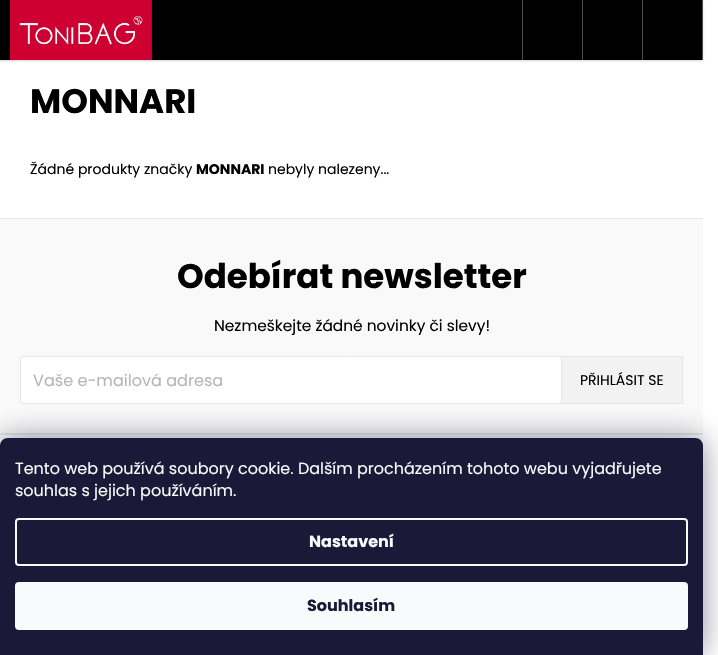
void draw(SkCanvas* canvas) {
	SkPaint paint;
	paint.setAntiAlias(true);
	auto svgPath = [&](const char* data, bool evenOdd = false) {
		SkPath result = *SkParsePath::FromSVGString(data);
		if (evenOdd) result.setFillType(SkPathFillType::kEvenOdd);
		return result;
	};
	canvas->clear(0xffffffff);
	paint.setColor(0x29000000);
	paint.setMaskFilter(SkMaskFilter::MakeBlur(kNormal_SkBlurStyle, 1));
	canvas->drawRect(SkRect::MakeXYWH(0, 1, 703, 60), paint);
	paint.setMaskFilter(nullptr);
	paint.setColor(0xff000000);
	canvas->drawRect(SkRect::MakeXYWH(0, 0, 702, 60), paint);
	canvas->drawImageRect(SkImages::DeferredFromEncodedData(SkData::MakeFromFileName("img1.png")), SkRect::MakeXYWH(10, 0, 142, 60), SkSamplingOptions());
	paint.setColor(0xff4d4d4d);
	canvas->drawRect(SkRect::MakeXYWH(702, 0, 1, 60), paint);
	canvas->drawRect(SkRect::MakeXYWH(522, 0, 1, 60), paint);
	canvas->drawRect(SkRect::MakeXYWH(582, 0, 1, 60), paint);
	canvas->drawRect(SkRect::MakeXYWH(642, 0, 1, 60), paint);
	SkFont f1(fontMgr->matchFamilyStyle("Poppins", SkFontStyle::Bold()), 34);
	f1.setSubpixel(true);
	paint.setColor(0xff000000);
	canvas->drawString("MONNARI", 30, 113, f1, paint);
	SkFont f2(fontMgr->matchFamilyStyle("Poppins", SkFontStyle::Normal()), 14);
	f2.setSubpixel(true);
	canvas->drawString("Žádné produkty značky", 30, 174, f2, paint);
	SkFont f3(fontMgr->matchFamilyStyle("Poppins", SkFontStyle::Bold()), 14);
	f3.setSubpixel(true);
	canvas->drawString("MONNARI", 196, 174, f3, paint);
	canvas->drawString("nebyly nalezeny...", 268, 174, f2, paint);
	paint.setColor(0xfff9f9f9);
	canvas->drawRect(SkRect::MakeXYWH(0, 219, 703, 227), paint);
	paint.setColor(0xffe6e6e6);
	canvas->drawRect(SkRect::MakeXYWH(0, 218, 703, 1), paint);
	canvas->drawRect(SkRect::MakeXYWH(0, 433, 703, 2), paint);
	paint.setColor(0xff000000);
	canvas->drawString("Odebírat newsletter", 177, 288, f1, paint);
	SkFont f4(fontMgr->matchFamilyStyle("Poppins", SkFontStyle::Normal()), 15.4);
	f4.setSubpixel(true);
	canvas->drawString("Nezmeškejte žádné novinky či slevy!", 214, 331, f4, paint);
	paint.setColor(0xffffffff);
	canvas->drawRoundRect(SkRect::MakeXYWH(20.5, 356.5, 662, 47), 2.5, 2.5, paint);
	paint.setStroke(true);
	paint.setStrokeWidth(1);
	paint.setColor(0xffe6e6e6);
	canvas->drawRoundRect(SkRect::MakeXYWH(20.5, 356.5, 662, 47), 2.5, 2.5, paint);
	SkFont f5(fontMgr->matchFamilyStyle("Poppins", SkFontStyle::Normal()), 16.1);
	f5.setSubpixel(true);
	paint.setStroke(false);
	paint.setColor(0xffb6b6b6);
	canvas->drawString("Vaše e-mailová adresa", 33, 386, f5, paint);
	paint.setColor(0xfff2f2f2);
	canvas->drawRect(SkRect::MakeXYWH(561.5, 356.5, 121, 47), paint);
	paint.setStroke(true);
	paint.setColor(0xffe6e6e6);
	canvas->drawRect(SkRect::MakeXYWH(561.5, 356.5, 121, 47), paint);
	paint.setStroke(false);
	paint.setColor(0xff000000);
	canvas->drawString("PŘIHLÁSIT SE", 580, 385, f2, paint);
	paint.setColor(0x801b1939);
	paint.setMaskFilter(SkMaskFilter::MakeBlur(kNormal_SkBlurStyle, 15));
	canvas->drawRoundRect(SkRect::MakeXYWH(0, 438, 703, 217), 8, 8, paint);
	paint.setMaskFilter(nullptr);
	paint.setColor(0xff1a1937);
	canvas->drawPath(svgPath("M8 438H695C699.5 438 703 441.5 703 446V655H0V446C0 441.5 3.5 438 8 438Z"), paint);
	SkFont f6(fontMgr->matchFamilyStyle("Poppins", SkFontStyle::Normal()), 16);
	f6.setSubpixel(true);
	paint.setColor(0xfff8fafb);
	canvas->drawString("Tento web používá soubory cookie. Dalším procházením tohoto webu vyjadřujete", 15, 474, f6, paint);
	canvas->drawString("souhlas s jejich používáním.", 15, 496, f6, paint);
	paint.setStroke(true);
	paint.setStrokeWidth(2);
	canvas->drawRoundRect(SkRect::MakeXYWH(16, 519, 671, 46), 3, 3, paint);
	SkFont f7(fontMgr->matchFamilyStyle("Poppins", SkFontStyle::Bold()), 16);
	f7.setSubpixel(true);
	paint.setStroke(false);
	canvas->drawString("Nastavení", 309, 547, f7, paint);
	canvas->drawRoundRect(SkRect::MakeXYWH(15, 582, 673, 48), 4, 4, paint);
	paint.setColor(0xff1a1937);
	canvas->drawString("Souhlasím", 307, 611, f7, paint);
}
